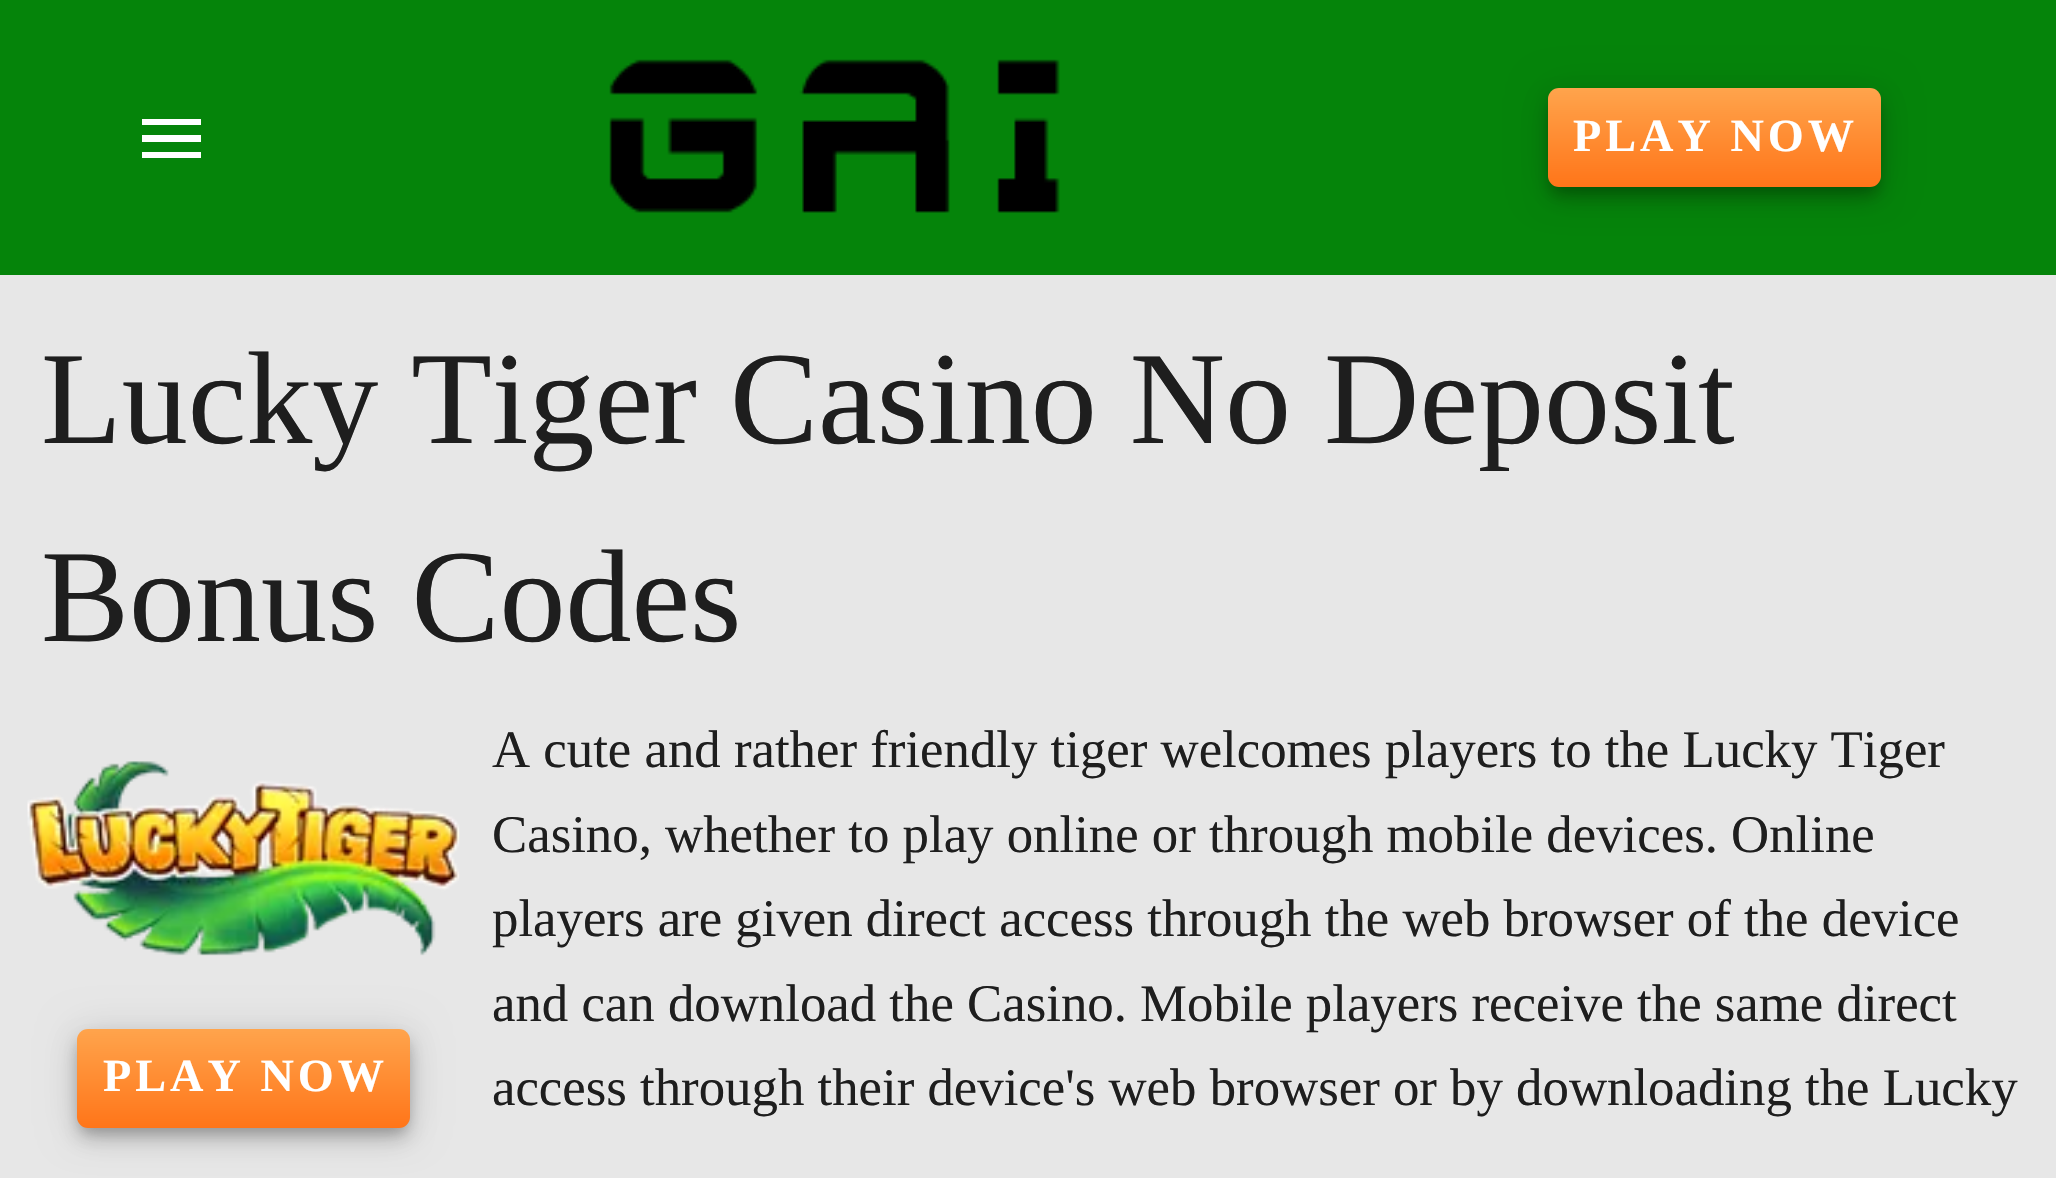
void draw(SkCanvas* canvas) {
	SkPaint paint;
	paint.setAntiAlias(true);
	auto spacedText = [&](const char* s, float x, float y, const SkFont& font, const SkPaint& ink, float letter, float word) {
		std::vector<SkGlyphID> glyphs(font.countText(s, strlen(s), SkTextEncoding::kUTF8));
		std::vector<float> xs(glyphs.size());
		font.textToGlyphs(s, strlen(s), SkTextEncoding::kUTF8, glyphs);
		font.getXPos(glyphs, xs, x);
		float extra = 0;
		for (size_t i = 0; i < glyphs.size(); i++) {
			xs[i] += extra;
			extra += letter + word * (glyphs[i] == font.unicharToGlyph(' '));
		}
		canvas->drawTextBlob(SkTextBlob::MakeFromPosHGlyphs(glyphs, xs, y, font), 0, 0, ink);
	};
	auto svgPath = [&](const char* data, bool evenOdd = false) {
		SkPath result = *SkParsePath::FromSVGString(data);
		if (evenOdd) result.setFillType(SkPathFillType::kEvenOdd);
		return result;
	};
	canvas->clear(0xffe7e7e7);
	paint.setColor(0xff05840a);
	canvas->drawRect(SkRect::MakeXYWH(0, 0, 2056, 275), paint);
	paint.setColor(0xffffffff);
	canvas->drawPath(svgPath("M142 119H201V125H142V119M142 135H201V142H142V135M142 152H201V158H142Z"), paint);
	canvas->drawImageRect(SkImages::DeferredFromEncodedData(SkData::MakeFromFileName("img1.png")), SkRect::MakeXYWH(609, 59, 451, 154), SkSamplingOptions());
	paint.setColor(0x1f000000);
	paint.setMaskFilter(SkMaskFilter::MakeBlur(kNormal_SkBlurStyle, 19));
	canvas->drawRoundRect(SkRect::MakeXYWH(1548, 91, 333, 99), 11, 11, paint);
	paint.setMaskFilter(nullptr);
	paint.setColor(0x24000000);
	paint.setMaskFilter(SkMaskFilter::MakeBlur(kNormal_SkBlurStyle, 11));
	canvas->drawRoundRect(SkRect::MakeXYWH(1548, 102, 333, 99), 11, 11, paint);
	paint.setMaskFilter(nullptr);
	paint.setColor(0x33000000);
	paint.setMaskFilter(SkMaskFilter::MakeBlur(kNormal_SkBlurStyle, 7));
	canvas->drawRoundRect(SkRect::MakeXYWH(1551, 99, 327, 94), 8, 8, paint);
	paint.setMaskFilter(nullptr);
	{
		const SkColor colors[] = {0xffffa44c, 0xffff7519};
		const float stops[] = {0, 1};
		const SkPoint ends[] = {{1715, 88}, {1715, 187}};
		paint.setShader(SkGradientShader::MakeLinear(ends, colors, stops, 2, SkTileMode::kClamp));
		paint.setAlpha(255);
	}
	canvas->drawRoundRect(SkRect::MakeXYWH(1548, 88, 333, 99), 11, 11, paint);
	SkFont f1(fontMgr->matchFamilyStyle("Liberation Serif", SkFontStyle::Bold()), 46.25);
	f1.setSubpixel(true);
	paint.setShader(nullptr);
	paint.setColor(0xffffffff);
	spacedText("PLAY NOW", 1573, 151, f1, paint, 4, 0);
	SkFont f2(fontMgr->matchFamilyStyle("Liberation Serif", SkFontStyle::Normal()), 132);
	f2.setSubpixel(true);
	paint.setColor(0xff1e1e1e);
	canvas->drawString("Lucky Tiger Casino No Deposit", 41, 443, f2, paint);
	canvas->drawString("Bonus Codes", 41, 641, f2, paint);
	canvas->drawImageRect(SkImages::DeferredFromEncodedData(SkData::MakeFromFileName("img2.png")), SkRect::MakeXYWH(27, 761, 433, 195), SkSamplingOptions());
	paint.setColor(0x1f000000);
	paint.setMaskFilter(SkMaskFilter::MakeBlur(kNormal_SkBlurStyle, 19));
	canvas->drawRoundRect(SkRect::MakeXYWH(77, 1031, 333, 99), 11, 11, paint);
	paint.setMaskFilter(nullptr);
	paint.setColor(0x24000000);
	paint.setMaskFilter(SkMaskFilter::MakeBlur(kNormal_SkBlurStyle, 11));
	canvas->drawRoundRect(SkRect::MakeXYWH(77, 1042, 333, 99), 11, 11, paint);
	paint.setMaskFilter(nullptr);
	paint.setColor(0x33000000);
	paint.setMaskFilter(SkMaskFilter::MakeBlur(kNormal_SkBlurStyle, 7));
	canvas->drawRoundRect(SkRect::MakeXYWH(80, 1040, 327, 93), 8, 8, paint);
	paint.setMaskFilter(nullptr);
	{
		const SkColor colors[] = {0xffffa44c, 0xffff7519};
		const float stops[] = {0, 1};
		const SkPoint ends[] = {{243, 1029}, {243, 1128}};
		paint.setShader(SkGradientShader::MakeLinear(ends, colors, stops, 2, SkTileMode::kClamp));
		paint.setAlpha(255);
	}
	canvas->drawRoundRect(SkRect::MakeXYWH(77, 1029, 333, 99), 11, 11, paint);
	paint.setShader(nullptr);
	paint.setColor(0xffffffff);
	spacedText("PLAY NOW", 103, 1091, f1, paint, 4, 0);
	SkFont f3(fontMgr->matchFamilyStyle("Liberation Serif", SkFontStyle::Normal()), 52.8);
	f3.setSubpixel(true);
	paint.setColor(0xff1e1e1e);
	canvas->drawString("A cute and rather friendly tiger welcomes players to the Lucky Tiger", 492, 767, f3, paint);
	canvas->drawString("Casino, whether to play online or through mobile devices. Online", 492, 852, f3, paint);
	canvas->drawString("players are given direct access through the web browser of the device", 492, 936, f3, paint);
	canvas->drawString("and can download the Casino. Mobile players receive the same direct", 492, 1021, f3, paint);
	canvas->drawString("access through their device's web browser or by downloading the Lucky", 492, 1105, f3, paint);
}
